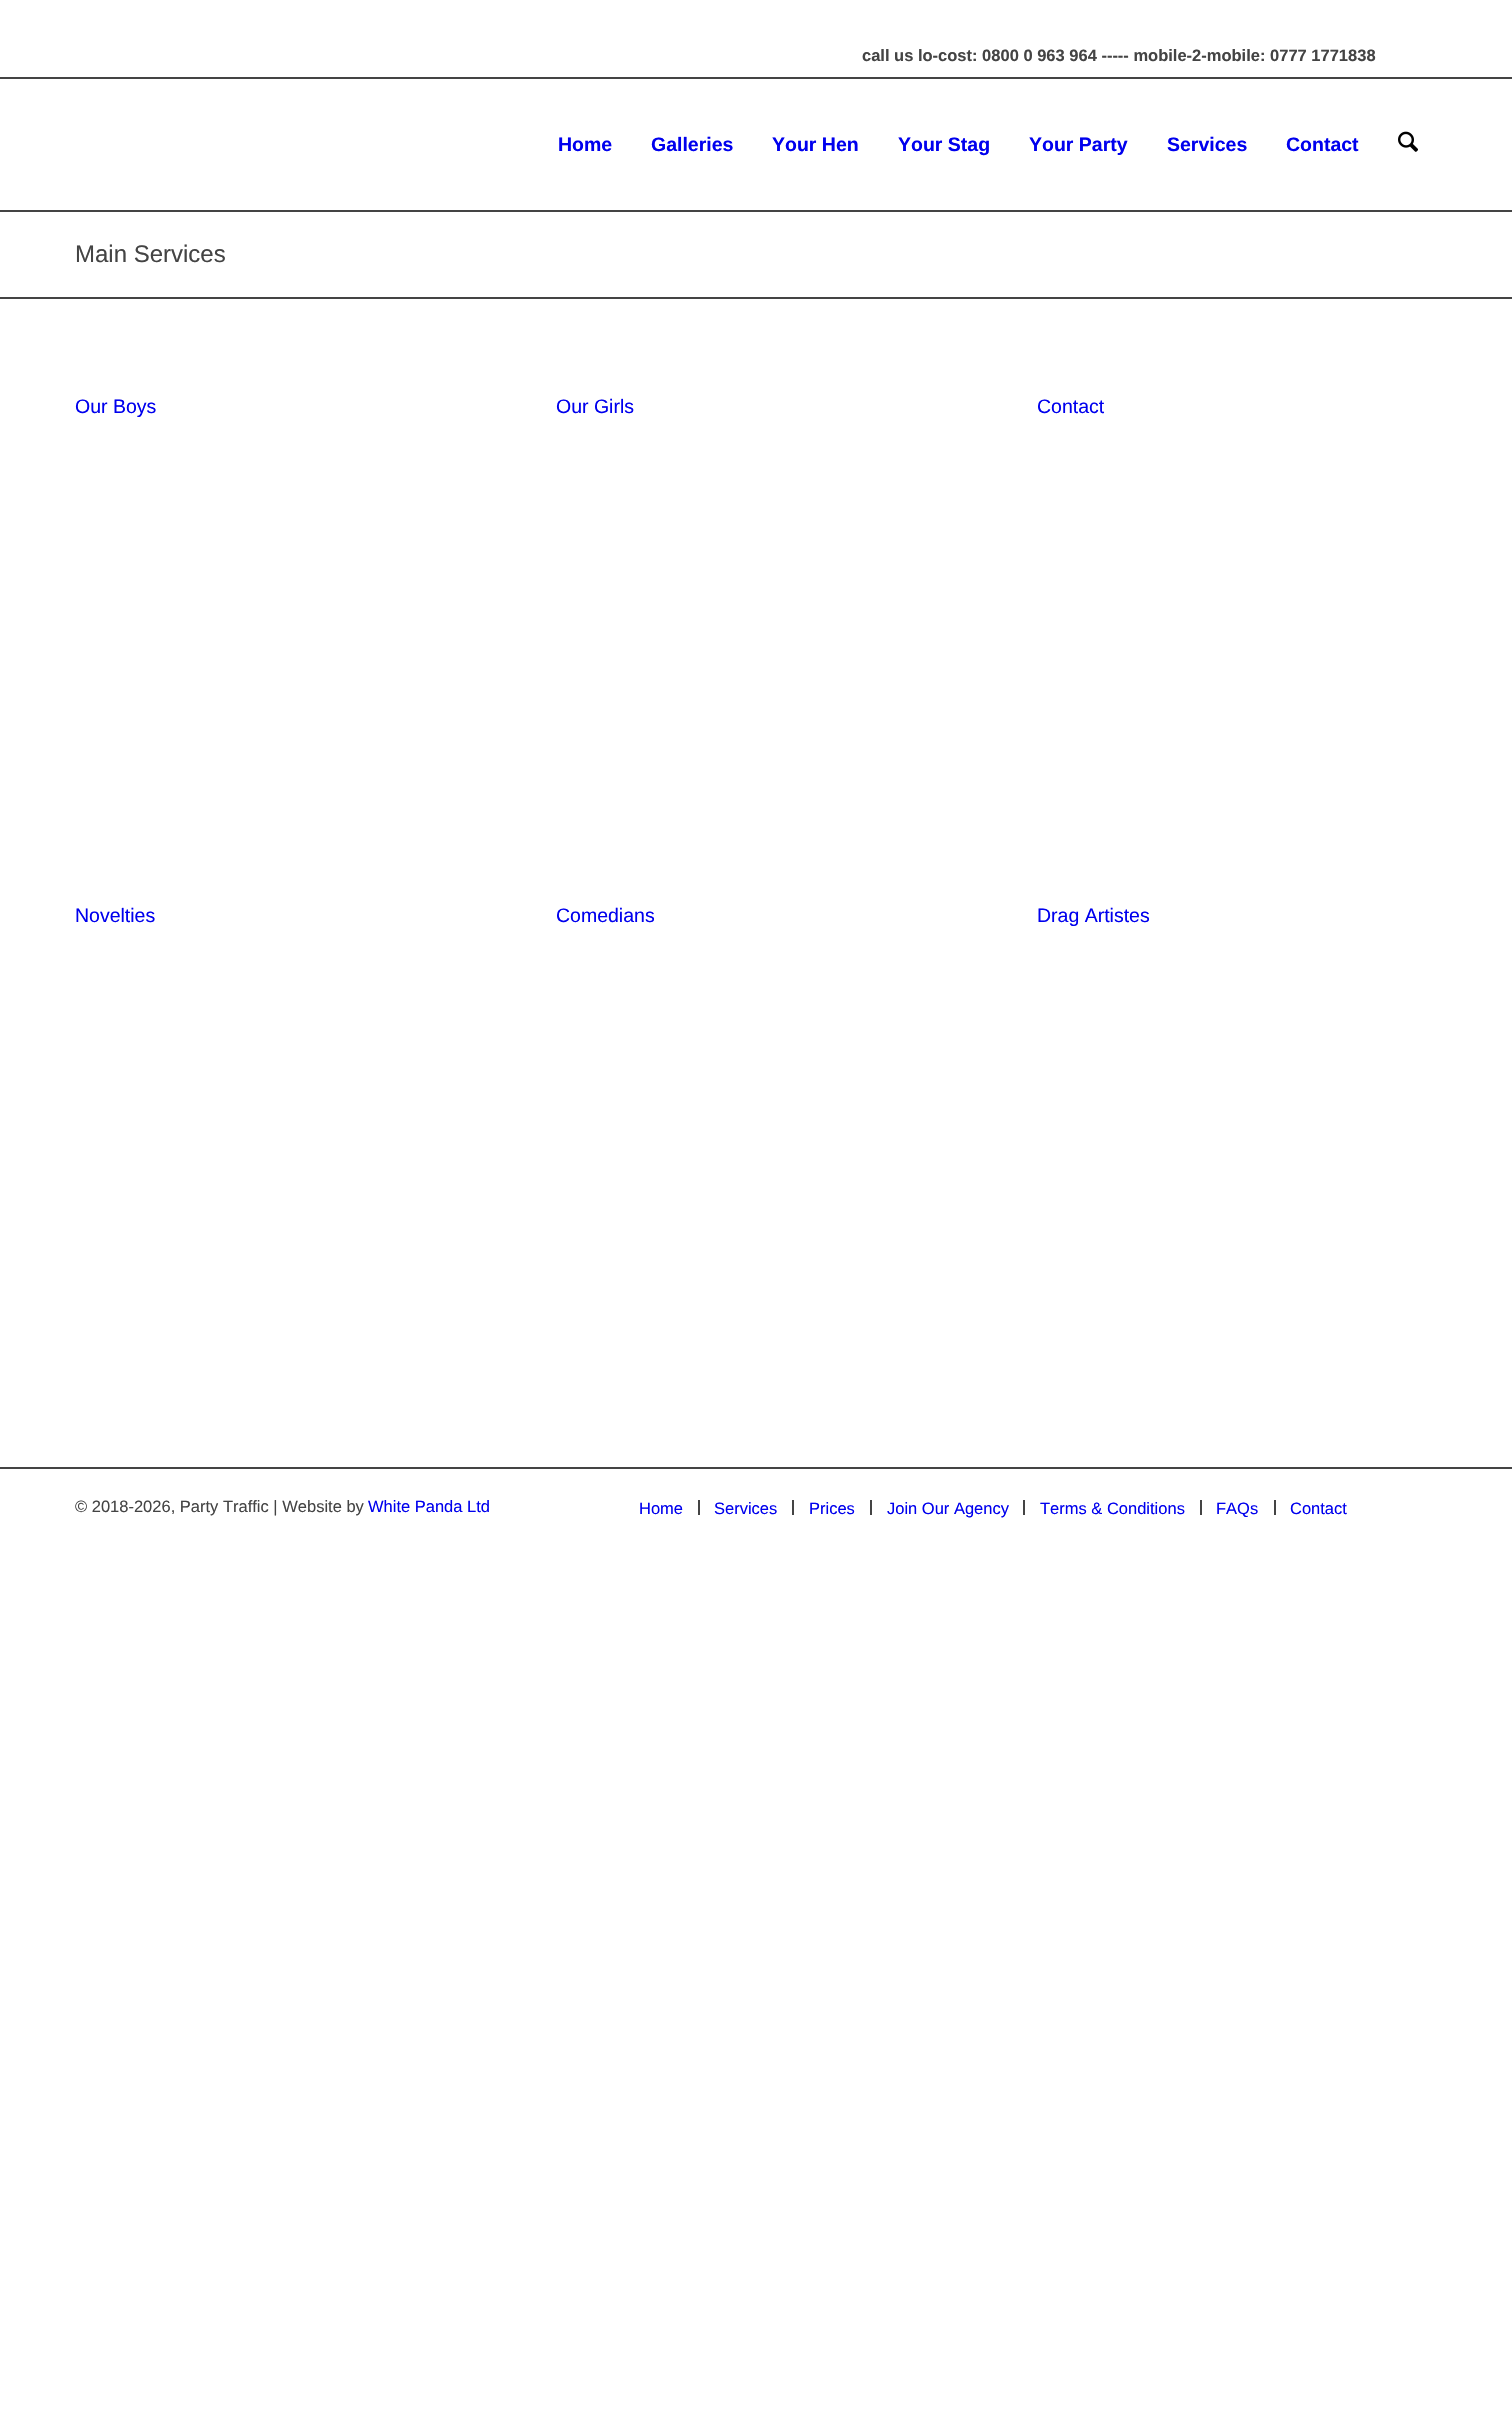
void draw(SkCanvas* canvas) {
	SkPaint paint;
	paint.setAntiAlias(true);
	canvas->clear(0xffffffff);
	SkFont f1(fontMgr->matchFamilyStyle("Liberation Sans", SkFontStyle::Bold()), 16.5);
	f1.setSubpixel(true);
	paint.setColor(0xff444444);
	canvas->drawString("call us lo-cost: 0800 0 963 964 ----- mobile-2-mobile: 0777 1771838", 862, 61, f1, paint);
	canvas->drawRect(SkRect::MakeXYWH(0, 77, 1512, 2), paint);
	SkFont f2(fontMgr->matchFamilyStyle("Liberation Sans", SkFontStyle::Bold()), 19.5);
	f2.setSubpixel(true);
	paint.setColor(0xff0000ee);
	canvas->drawString("Home", 558, 151, f2, paint);
	canvas->drawString("Galleries", 651, 151, f2, paint);
	canvas->drawString("Your Hen", 772, 151, f2, paint);
	canvas->drawString("Your Stag", 898, 151, f2, paint);
	canvas->drawString("Your Party", 1029, 151, f2, paint);
	canvas->drawString("Services", 1167, 151, f2, paint);
	canvas->drawString("Contact", 1286, 151, f2, paint);
	canvas->drawImageRect(SkImages::DeferredFromEncodedData(SkData::MakeFromFileName("img1.png")), SkRect::MakeXYWH(1398, 131, 20, 21), SkSamplingOptions());
	paint.setColor(0xff444444);
	canvas->drawRect(SkRect::MakeXYWH(0, 210, 1512, 2), paint);
	SkFont f3(fontMgr->matchFamilyStyle("Liberation Sans", SkFontStyle::Normal()), 24);
	f3.setSubpixel(true);
	canvas->drawString("Main Services", 75, 262, f3, paint);
	canvas->drawRect(SkRect::MakeXYWH(0, 297, 1512, 2), paint);
	SkFont f4(fontMgr->matchFamilyStyle("Liberation Sans", SkFontStyle::Normal()), 19.5);
	f4.setSubpixel(true);
	paint.setColor(0xff0000ee);
	canvas->drawString("Our Boys", 75, 413, f4, paint);
	canvas->drawString("Our Girls", 556, 413, f4, paint);
	canvas->drawString("Contact", 1037, 413, f4, paint);
	canvas->drawString("Novelties", 75, 922, f4, paint);
	canvas->drawString("Comedians", 556, 922, f4, paint);
	canvas->drawString("Drag Artistes", 1037, 922, f4, paint);
	paint.setColor(0xff444444);
	canvas->drawRect(SkRect::MakeXYWH(0, 1467, 1512, 2), paint);
	SkFont f5(fontMgr->matchFamilyStyle("Liberation Sans", SkFontStyle::Normal()), 16.5);
	f5.setSubpixel(true);
	canvas->drawString("© 2018-2026, Party Traffic | Website by", 75, 1512, f5, paint);
	paint.setColor(0xff0000ee);
	canvas->drawString("White Panda Ltd", 368, 1512, f5, paint);
	canvas->drawString("Home", 639, 1514, f5, paint);
	paint.setColor(0xff444444);
	canvas->drawRect(SkRect::MakeXYWH(698, 1500, 2, 15), paint);
	paint.setColor(0xff0000ee);
	canvas->drawString("Services", 714, 1514, f5, paint);
	paint.setColor(0xff444444);
	canvas->drawRect(SkRect::MakeXYWH(792, 1500, 2, 15), paint);
	paint.setColor(0xff0000ee);
	canvas->drawString("Prices", 809, 1514, f5, paint);
	paint.setColor(0xff444444);
	canvas->drawRect(SkRect::MakeXYWH(870, 1500, 2, 15), paint);
	paint.setColor(0xff0000ee);
	canvas->drawString("Join Our Agency", 887, 1514, f5, paint);
	paint.setColor(0xff444444);
	canvas->drawRect(SkRect::MakeXYWH(1023, 1500, 2, 15), paint);
	paint.setColor(0xff0000ee);
	canvas->drawString("Terms & Conditions", 1040, 1514, f5, paint);
	paint.setColor(0xff444444);
	canvas->drawRect(SkRect::MakeXYWH(1200, 1500, 2, 15), paint);
	paint.setColor(0xff0000ee);
	canvas->drawString("FAQs", 1216, 1514, f5, paint);
	paint.setColor(0xff444444);
	canvas->drawRect(SkRect::MakeXYWH(1274, 1500, 2, 15), paint);
	paint.setColor(0xff0000ee);
	canvas->drawString("Contact", 1290, 1514, f5, paint);
}
